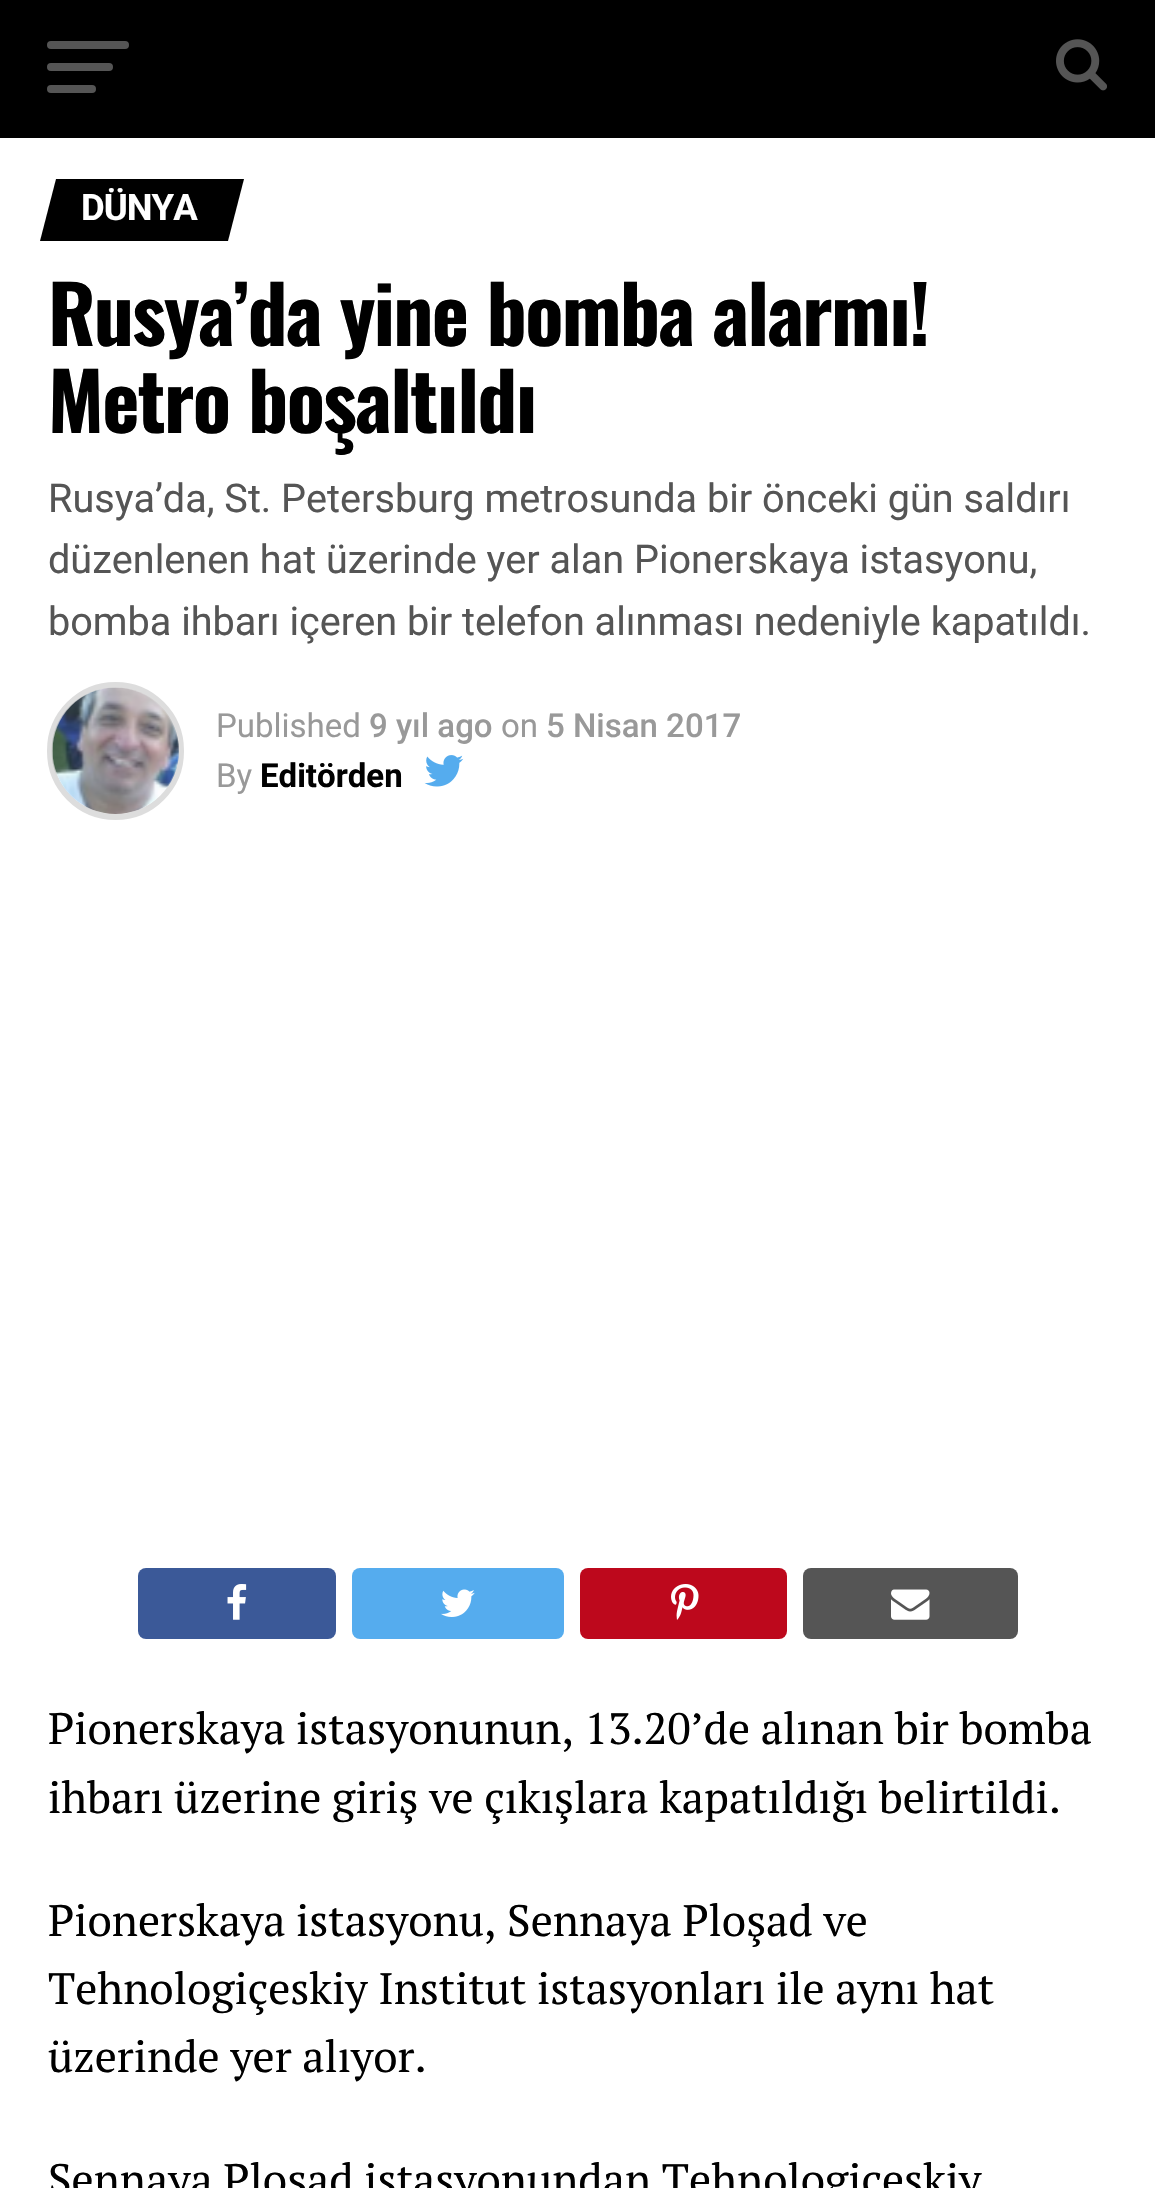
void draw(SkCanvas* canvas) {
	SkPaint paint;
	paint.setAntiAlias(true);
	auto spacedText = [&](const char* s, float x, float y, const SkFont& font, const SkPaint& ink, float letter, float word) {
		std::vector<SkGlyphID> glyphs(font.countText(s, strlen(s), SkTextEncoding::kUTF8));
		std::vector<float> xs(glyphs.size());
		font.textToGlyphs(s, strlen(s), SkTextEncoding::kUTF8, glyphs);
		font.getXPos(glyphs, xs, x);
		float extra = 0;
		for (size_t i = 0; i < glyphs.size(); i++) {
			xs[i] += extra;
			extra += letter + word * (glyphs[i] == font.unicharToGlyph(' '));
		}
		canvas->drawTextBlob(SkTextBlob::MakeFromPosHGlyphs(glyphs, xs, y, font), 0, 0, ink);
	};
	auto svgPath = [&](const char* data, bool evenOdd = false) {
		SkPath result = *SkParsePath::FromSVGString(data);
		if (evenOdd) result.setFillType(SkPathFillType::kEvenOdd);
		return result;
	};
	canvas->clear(0xffffffff);
	paint.setColor(0xff000000);
	canvas->drawRect(SkRect::MakeXYWH(0, 0, 1155, 138), paint);
	paint.setColor(0xff555555);
	canvas->drawRoundRect(SkRect::MakeXYWH(47, 41, 82, 8), 4, 4, paint);
	canvas->drawRoundRect(SkRect::MakeXYWH(47, 63, 66, 8), 4, 4, paint);
	canvas->drawRoundRect(SkRect::MakeXYWH(47, 85, 49, 8), 4, 4, paint);
	canvas->drawImageRect(SkImages::DeferredFromEncodedData(SkData::MakeFromFileName("img1.png")), SkRect::MakeXYWH(1056, 39, 51, 52), SkSamplingOptions());
	paint.setColor(0xff000000);
	canvas->drawPath(svgPath("M56 179H244L228 241H40Z"), paint);
	SkFont f1(fontMgr->matchFamilyStyle("Roboto", SkFontStyle::Bold()), 36.5);
	f1.setSubpixel(true);
	paint.setColor(0xffffffff);
	spacedText("DÜNYA", 81, 220, f1, paint, -1, 0);
	SkFont f2(fontMgr->matchFamilyStyle("Oswald", SkFontStyle::Bold()), 79.25);
	f2.setSubpixel(true);
	paint.setColor(0xff000000);
	spacedText("Rusya’da yine bomba alarmı!", 48, 346, f2, paint, -1.6, 0.5);
	spacedText("Metro boşaltıldı", 48, 433, f2, paint, -1.6, 0);
	SkFont f3(fontMgr->matchFamilyStyle("Roboto", SkFontStyle::Normal()), 39.6);
	f3.setSubpixel(true);
	paint.setColor(0xff555555);
	canvas->drawString("Rusya’da, St. Petersburg metrosunda bir önceki gün saldırı", 48, 512, f3, paint);
	canvas->drawString("düzenlenen hat üzerinde yer alan Pionerskaya istasyonu,", 48, 573, f3, paint);
	canvas->drawString("bomba ihbarı içeren bir telefon alınması nedeniyle kapatıldı.", 48, 635, f3, paint);
	paint.setStroke(true);
	paint.setStrokeWidth(6);
	paint.setColor(0xffdddddd);
	canvas->drawRoundRect(SkRect::MakeXYWH(50, 685, 131, 132), 65.5, 65.5, paint);
	canvas->drawImageRect(SkImages::DeferredFromEncodedData(SkData::MakeFromFileName("img2.png")), SkRect::MakeXYWH(51, 687, 128, 127), SkSamplingOptions());
	SkFont f4(fontMgr->matchFamilyStyle("Roboto", SkFontStyle::Normal()), 33);
	f4.setSubpixel(true);
	paint.setStroke(false);
	paint.setColor(0xff999999);
	canvas->drawString("Published", 216, 737, f4, paint);
	SkFont f5(fontMgr->matchFamilyStyle("Roboto", SkFontStyle(500, SkFontStyle::kNormal_Width, SkFontStyle::kUpright_Slant)), 33);
	f5.setSubpixel(true);
	canvas->drawString("9 yıl ago", 369, 737, f5, paint);
	canvas->drawString("on", 501, 737, f4, paint);
	canvas->drawString("5 Nisan 2017", 546, 737, f5, paint);
	canvas->drawString("By", 216, 787, f4, paint);
	SkFont f6(fontMgr->matchFamilyStyle("Roboto", SkFontStyle::Bold()), 33);
	f6.setSubpixel(true);
	paint.setColor(0xff000000);
	canvas->drawString("Editörden", 260, 787, f6, paint);
	canvas->drawImageRect(SkImages::DeferredFromEncodedData(SkData::MakeFromFileName("img3.png")), SkRect::MakeXYWH(424, 755, 40, 32), SkSamplingOptions());
	paint.setColor(0xff3b5998);
	canvas->drawRoundRect(SkRect::MakeXYWH(138, 1568, 198, 71), 8, 8, paint);
	canvas->drawImageRect(SkImages::DeferredFromEncodedData(SkData::MakeFromFileName("img4.png")), SkRect::MakeXYWH(227, 1584, 20, 36), SkSamplingOptions());
	paint.setColor(0xff55acee);
	canvas->drawRoundRect(SkRect::MakeXYWH(352, 1568, 212, 71), 8, 8, paint);
	canvas->drawImageRect(SkImages::DeferredFromEncodedData(SkData::MakeFromFileName("img5.png")), SkRect::MakeXYWH(441, 1589, 34, 28), SkSamplingOptions());
	paint.setColor(0xffbd081c);
	canvas->drawRoundRect(SkRect::MakeXYWH(580, 1568, 207, 71), 8, 8, paint);
	canvas->drawImageRect(SkImages::DeferredFromEncodedData(SkData::MakeFromFileName("img6.png")), SkRect::MakeXYWH(671, 1584, 28, 36), SkSamplingOptions());
	paint.setColor(0xff555555);
	canvas->drawRoundRect(SkRect::MakeXYWH(803, 1568, 215, 71), 8, 8, paint);
	canvas->drawImageRect(SkImages::DeferredFromEncodedData(SkData::MakeFromFileName("img7.png")), SkRect::MakeXYWH(891, 1589, 39, 31), SkSamplingOptions());
	SkFont f7(fontMgr->matchFamilyStyle("PT Serif", SkFontStyle::Normal()), 44);
	f7.setSubpixel(true);
	paint.setColor(0xff000000);
	canvas->drawString("Pionerskaya istasyonunun, 13.20’de alınan bir bomba", 48, 1744, f7, paint);
	canvas->drawString("ihbarı üzerine giriş ve çıkışlara kapatıldığı belirtildi.", 48, 1813, f7, paint);
	canvas->drawString("Pionerskaya istasyonu, Sennaya Ploşad ve", 48, 1936, f7, paint);
	canvas->drawString("Tehnologiçeskiy Institut istasyonları ile aynı hat", 48, 2004, f7, paint);
	canvas->drawString("üzerinde yer alıyor.", 48, 2072, f7, paint);
	canvas->drawString("Sennaya Ploşad istasyonundan Tehnologiçeskiy", 48, 2195, f7, paint);
}
